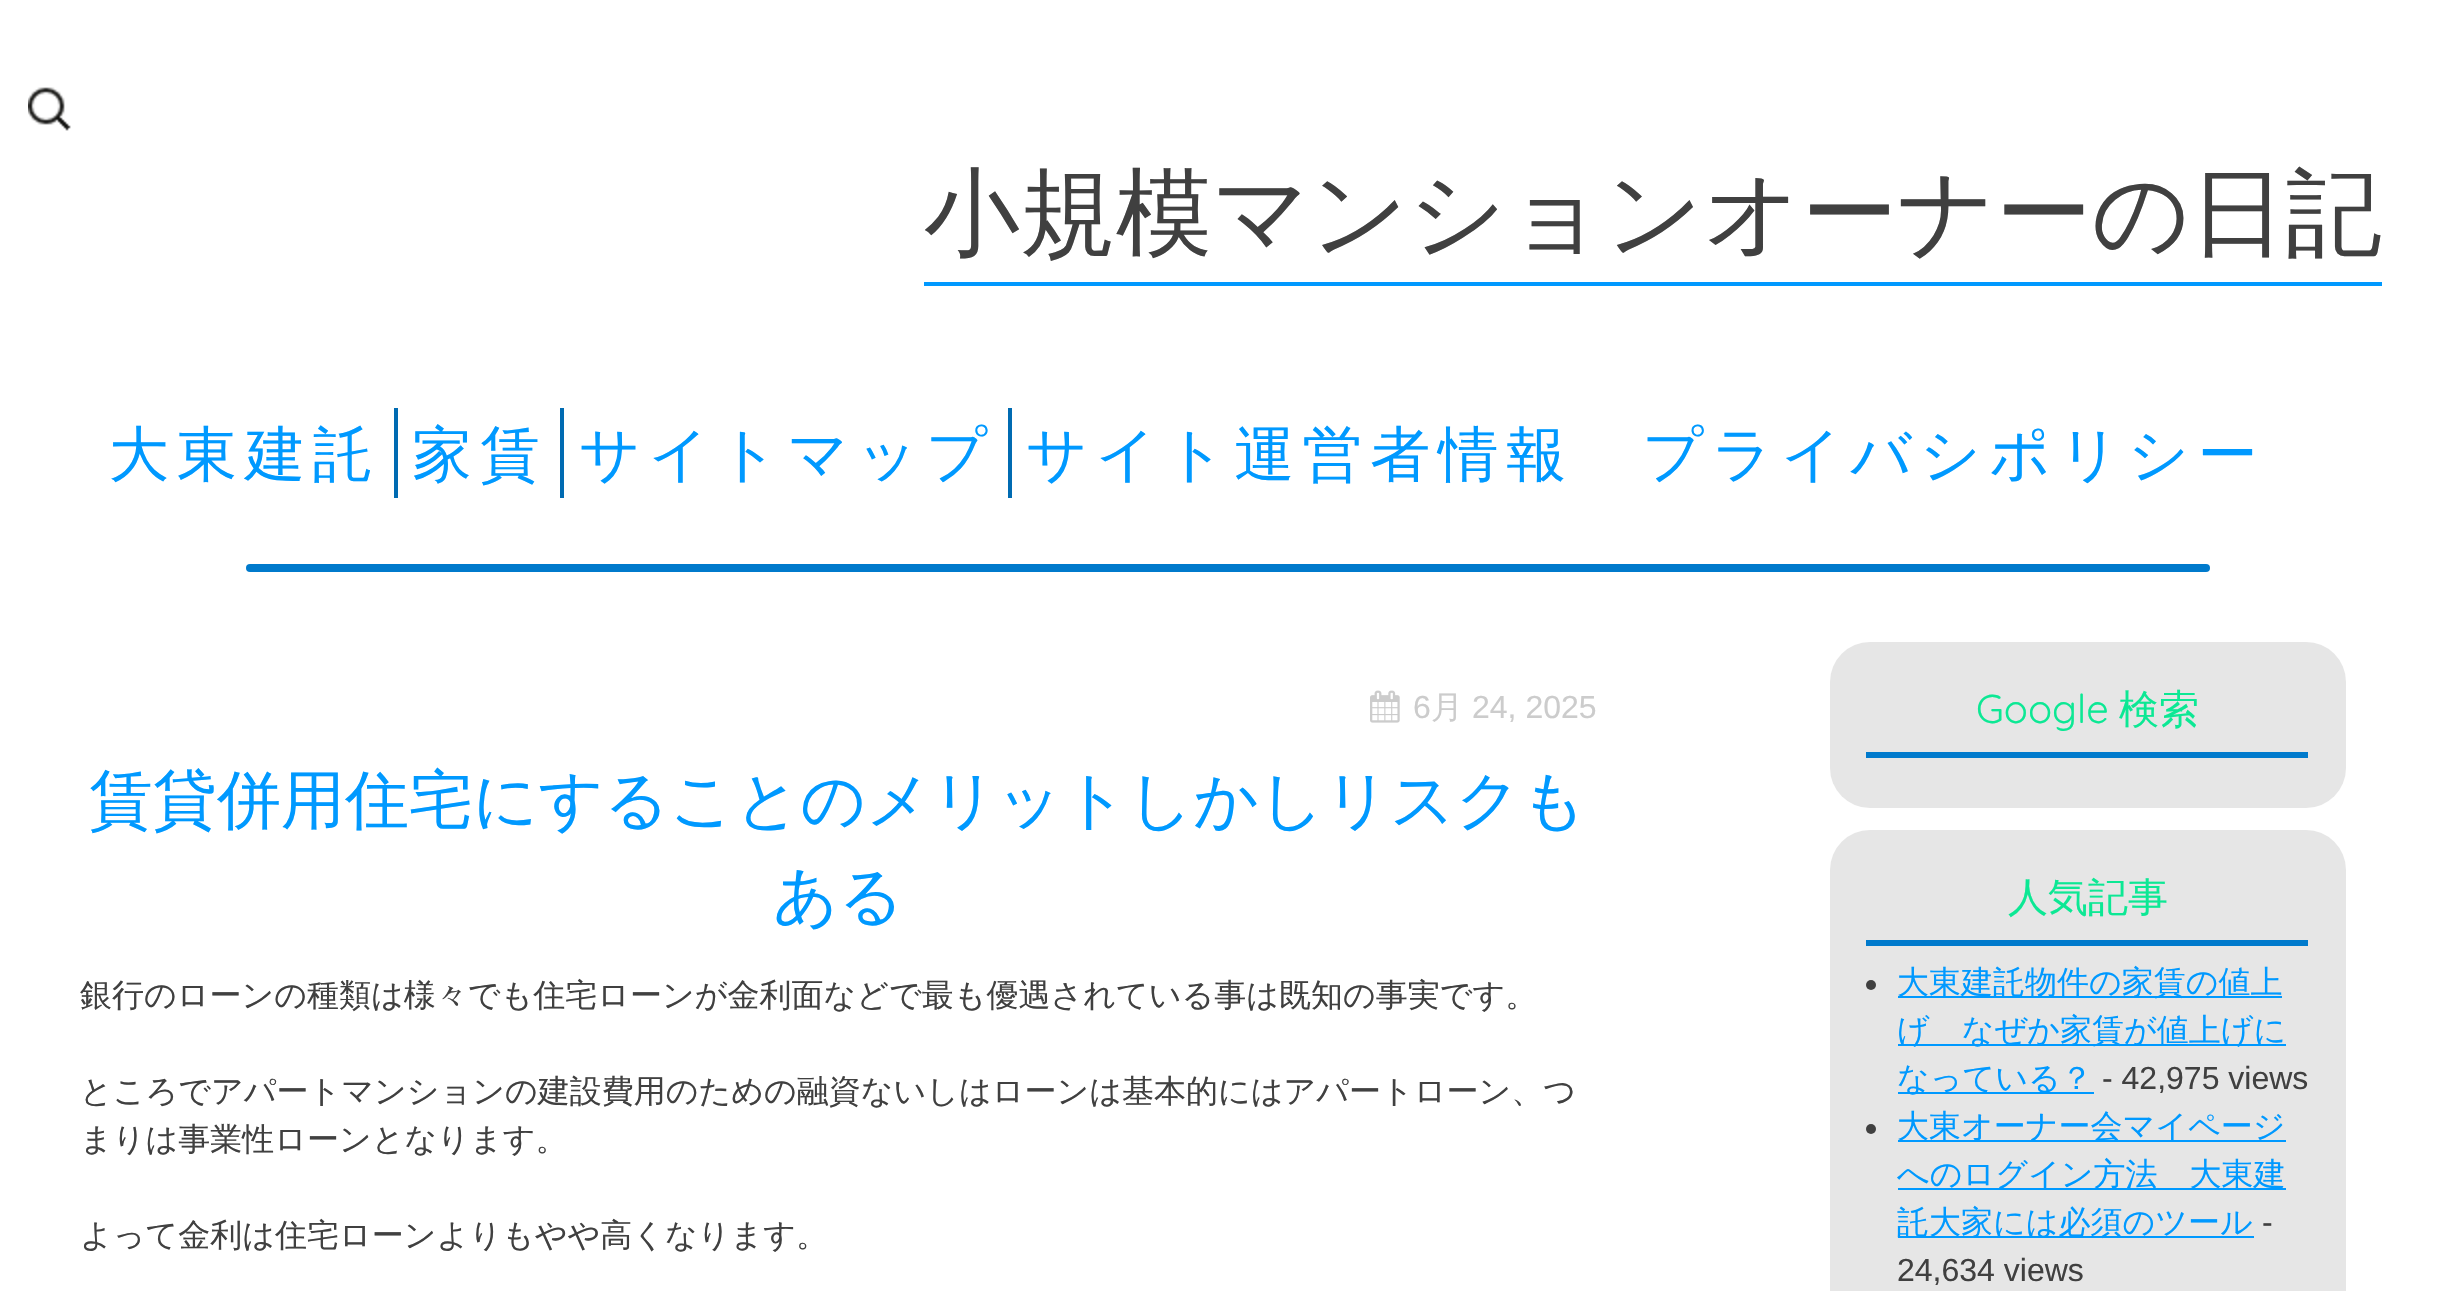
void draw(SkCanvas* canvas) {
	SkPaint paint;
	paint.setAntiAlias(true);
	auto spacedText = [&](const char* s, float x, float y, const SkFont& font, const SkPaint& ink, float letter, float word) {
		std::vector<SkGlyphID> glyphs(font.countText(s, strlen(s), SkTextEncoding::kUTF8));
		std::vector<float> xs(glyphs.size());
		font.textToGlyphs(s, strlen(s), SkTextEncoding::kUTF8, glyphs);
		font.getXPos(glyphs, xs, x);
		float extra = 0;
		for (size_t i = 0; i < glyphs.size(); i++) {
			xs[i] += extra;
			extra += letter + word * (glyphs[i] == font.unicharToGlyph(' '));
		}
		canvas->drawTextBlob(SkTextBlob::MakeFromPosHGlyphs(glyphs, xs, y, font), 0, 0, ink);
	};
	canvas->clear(0xffffffff);
	canvas->drawImageRect(SkImages::DeferredFromEncodedData(SkData::MakeFromFileName("img1.png")), SkRect::MakeXYWH(28, 87, 43, 44), SkSamplingOptions());
	paint.setColor(0xff0099ff);
	canvas->drawRect(SkRect::MakeXYWH(924, 282, 1458, 4), paint);
	SkFont f1(fontMgr->matchFamilyStyle("WenQuanYi Zen Hei", SkFontStyle(500, SkFontStyle::kNormal_Width, SkFontStyle::kUpright_Slant)), 96);
	f1.setSubpixel(true);
	paint.setColor(0xff404040);
	canvas->drawString("小規模マンションオーナーの日記", 924, 246, f1, paint);
	SkFont f2(fontMgr->matchFamilyStyle("WenQuanYi Zen Hei", SkFontStyle(500, SkFontStyle::kNormal_Width, SkFontStyle::kUpright_Slant)), 60);
	f2.setSubpixel(true);
	paint.setColor(0xff0099ff);
	spacedText("大東建託", 109, 475, f2, paint, 8, 0);
	paint.setColor(0xff006bb2);
	canvas->drawRect(SkRect::MakeXYWH(394, 408, 4, 90), paint);
	paint.setColor(0xff0099ff);
	spacedText("家賃", 412, 475, f2, paint, 8, 0);
	paint.setColor(0xff006bb2);
	canvas->drawRect(SkRect::MakeXYWH(560, 408, 4, 90), paint);
	paint.setColor(0xff0099ff);
	spacedText("サイトマップ", 579, 475, f2, paint, 8, 0);
	paint.setColor(0xff006bb2);
	canvas->drawRect(SkRect::MakeXYWH(1008, 408, 4, 90), paint);
	paint.setColor(0xff0099ff);
	spacedText("サイト運営者情報　プライバシポリシー", 1026, 475, f2, paint, 8, 0);
	paint.setColor(0xff007acc);
	canvas->drawRoundRect(SkRect::MakeXYWH(246, 564, 1964, 8), 4, 4, paint);
	canvas->drawImageRect(SkImages::DeferredFromEncodedData(SkData::MakeFromFileName("img2.png")), SkRect::MakeXYWH(1370, 690, 30, 33), SkSamplingOptions());
	SkFont f3(fontMgr->matchFamilyStyle("Liberation Sans", SkFontStyle::Normal()), 32);
	f3.setSubpixel(true);
	paint.setColor(0xffcccccc);
	canvas->drawString("6", 1413, 718, f3, paint);
	SkFont f4(fontMgr->matchFamilyStyle("WenQuanYi Zen Hei", SkFontStyle(500, SkFontStyle::kNormal_Width, SkFontStyle::kUpright_Slant)), 32);
	f4.setSubpixel(true);
	canvas->drawString("月", 1431, 718, f4, paint);
	canvas->drawString("24, 2025", 1472, 718, f3, paint);
	SkFont f5(fontMgr->matchFamilyStyle("WenQuanYi Zen Hei", SkFontStyle(500, SkFontStyle::kNormal_Width, SkFontStyle::kUpright_Slant)), 64);
	f5.setSubpixel(true);
	paint.setColor(0xff0099ff);
	canvas->drawString("賃貸併用住宅にすることのメリットしかしリスクも", 89, 822, f5, paint);
	canvas->drawString("ある", 773, 918, f5, paint);
	paint.setColor(0xff404040);
	canvas->drawString("銀行のローンの種類は様々でも住宅ローンが金利面などで最も優遇されている事は既知の事実です。", 80, 1006, f4, paint);
	canvas->drawString("ところでアパートマンションの建設費用のための融資ないしはローンは基本的にはアパートローン、つ", 80, 1102, f4, paint);
	canvas->drawString("まりは事業性ローンとなります。", 80, 1150, f4, paint);
	canvas->drawString("よって金利は住宅ローンよりもやや高くなります。", 80, 1246, f4, paint);
	paint.setColor(0xffe6e6e6);
	canvas->drawRoundRect(SkRect::MakeXYWH(1830, 642, 516, 166), 40, 40, paint);
	paint.setColor(0xff007acc);
	canvas->drawRect(SkRect::MakeXYWH(1866, 752, 442, 6), paint);
	SkFont f6(fontMgr->matchFamilyStyle("Quicksand", SkFontStyle(300, SkFontStyle::kNormal_Width, SkFontStyle::kUpright_Slant)), 40);
	f6.setSubpixel(true);
	paint.setColor(0xff0ce894);
	canvas->drawString("Google", 1976, 723, f6, paint);
	SkFont f7(fontMgr->matchFamilyStyle("WenQuanYi Zen Hei", SkFontStyle(500, SkFontStyle::kNormal_Width, SkFontStyle::kUpright_Slant)), 40);
	f7.setSubpixel(true);
	canvas->drawString("検索", 2119, 723, f7, paint);
	paint.setColor(0xffe6e6e6);
	canvas->drawRoundRect(SkRect::MakeXYWH(1830, 830, 516, 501), 40, 40, paint);
	paint.setColor(0xff007acc);
	canvas->drawRect(SkRect::MakeXYWH(1866, 940, 442, 6), paint);
	paint.setColor(0xff0ce894);
	canvas->drawString("人気記事", 2008, 911, f7, paint);
	paint.setColor(0xff404040);
	canvas->drawCircle(1871, 985, 5, paint);
	paint.setColor(0xff0099ff);
	canvas->drawRect(SkRect::MakeXYWH(1898, 996, 384, 2), paint);
	canvas->drawString("大東建託物件の家賃の値上", 1897, 993, f4, paint);
	canvas->drawRect(SkRect::MakeXYWH(1898, 1044, 388, 2), paint);
	canvas->drawString("げ　なぜか家賃が値上げに", 1897, 1041, f4, paint);
	canvas->drawRect(SkRect::MakeXYWH(1898, 1092, 196, 2), paint);
	canvas->drawString("なっている？", 1897, 1089, f4, paint);
	paint.setColor(0xff404040);
	canvas->drawString("- 42,975 views", 2102, 1089, f3, paint);
	canvas->drawCircle(1871, 1129, 5, paint);
	paint.setColor(0xff0099ff);
	canvas->drawRect(SkRect::MakeXYWH(1898, 1140, 388, 2), paint);
	canvas->drawString("大東オーナー会マイページ", 1897, 1137, f4, paint);
	canvas->drawRect(SkRect::MakeXYWH(1898, 1188, 388, 2), paint);
	canvas->drawString("へのログイン方法　大東建", 1897, 1185, f4, paint);
	canvas->drawRect(SkRect::MakeXYWH(1898, 1236, 356, 2), paint);
	canvas->drawString("託大家には必須のツール", 1897, 1233, f4, paint);
	paint.setColor(0xff404040);
	canvas->drawString("-", 2262, 1233, f3, paint);
	canvas->drawString("24,634 views", 1897, 1281, f3, paint);
}
